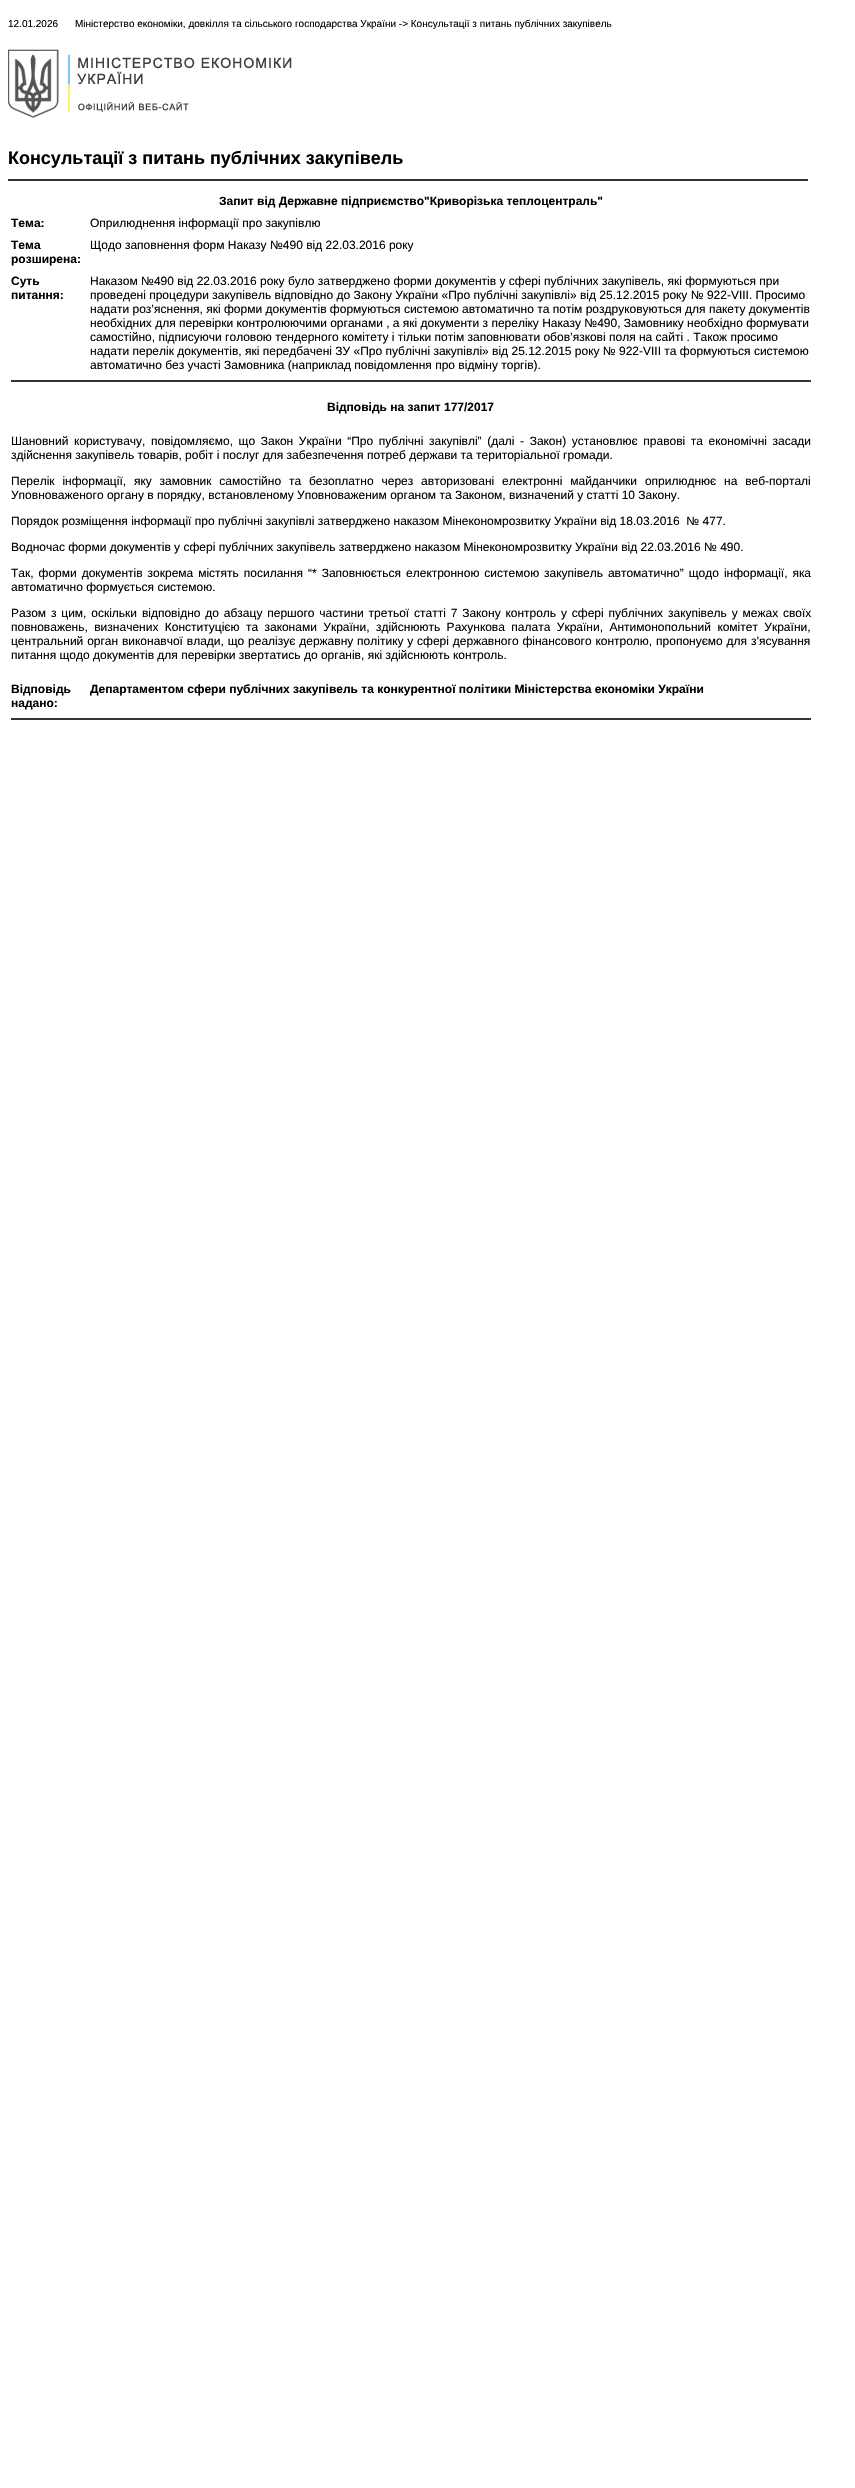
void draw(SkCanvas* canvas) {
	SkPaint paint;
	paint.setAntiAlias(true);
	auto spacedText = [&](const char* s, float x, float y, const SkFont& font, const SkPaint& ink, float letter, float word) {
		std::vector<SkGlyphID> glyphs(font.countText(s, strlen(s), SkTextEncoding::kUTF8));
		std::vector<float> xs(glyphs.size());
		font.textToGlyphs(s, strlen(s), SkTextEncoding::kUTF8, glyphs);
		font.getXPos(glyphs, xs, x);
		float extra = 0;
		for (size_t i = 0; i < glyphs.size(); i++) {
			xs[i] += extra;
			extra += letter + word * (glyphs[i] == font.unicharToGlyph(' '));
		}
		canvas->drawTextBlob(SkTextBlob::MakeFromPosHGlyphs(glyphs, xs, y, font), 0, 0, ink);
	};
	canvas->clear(0xffffffff);
	SkFont f1(fontMgr->matchFamilyStyle("Liberation Sans", SkFontStyle::Normal()), 10);
	f1.setSubpixel(true);
	paint.setColor(0xff000000);
	canvas->drawString("12.01.2026", 8, 27, f1, paint);
	canvas->drawString("Міністерство економіки, довкілля та сільського господарства України -> Консультації з питань публічних закупівель", 75, 27, f1, paint);
	canvas->drawImageRect(SkImages::DeferredFromEncodedData(SkData::MakeFromFileName("img1.png")), SkRect::MakeXYWH(8, 49, 284, 69), SkSamplingOptions());
	SkFont f2(fontMgr->matchFamilyStyle("Liberation Sans", SkFontStyle::Bold()), 18);
	f2.setSubpixel(true);
	canvas->drawString("Консультації з питань публічних закупівель", 8, 164, f2, paint);
	paint.setColor(0xff323232);
	canvas->drawRect(SkRect::MakeXYWH(8, 179, 800, 2), paint);
	SkFont f3(fontMgr->matchFamilyStyle("Liberation Sans", SkFontStyle::Bold()), 12);
	f3.setSubpixel(true);
	paint.setColor(0xff000000);
	canvas->drawString("Запит від Державне підприємство\"Криворізька теплоцентраль\"", 219, 205, f3, paint);
	canvas->drawString("Тема:", 11, 227, f3, paint);
	SkFont f4(fontMgr->matchFamilyStyle("Liberation Sans", SkFontStyle::Normal()), 12);
	f4.setSubpixel(true);
	canvas->drawString("Оприлюднення інформації про закупівлю", 90, 227, f4, paint);
	canvas->drawString("Тема", 11, 249, f3, paint);
	canvas->drawString("розширена:", 11, 263, f3, paint);
	canvas->drawString("Щодо заповнення форм Наказу №490 від 22.03.2016 року", 90, 249, f4, paint);
	canvas->drawString("Суть", 11, 285, f3, paint);
	canvas->drawString("питання:", 11, 299, f3, paint);
	canvas->drawString("Наказом №490 від 22.03.2016 року було затверджено форми документів у сфері публічних закупівель, які формуються при", 90, 285, f4, paint);
	canvas->drawString("проведені процедури закупівель відповідно до Закону України «Про публічні закупівлі» від 25.12.2015 року № 922-VІІІ. Просимо", 90, 299, f4, paint);
	canvas->drawString("надати роз’яснення, які форми документів формуються системою автоматично та потім роздруковуються для пакету документів", 90, 313, f4, paint);
	canvas->drawString("необхідних для перевірки контролюючими органами , а які документи з переліку Наказу №490, Замовнику необхідно формувати", 90, 327, f4, paint);
	canvas->drawString("самостійно, підписуючи головою тендерного комітету і тільки потім заповнювати обов’язкові поля на сайті . Також просимо", 90, 341, f4, paint);
	canvas->drawString("надати перелік документів, які передбачені ЗУ «Про публічні закупівлі» від 25.12.2015 року № 922-VІІІ та формуються системою", 90, 355, f4, paint);
	canvas->drawString("автоматично без участі Замовника (наприклад повідомлення про відміну торгів).", 90, 369, f4, paint);
	paint.setColor(0xff323232);
	canvas->drawRect(SkRect::MakeXYWH(11, 380, 800, 2), paint);
	paint.setColor(0xff000000);
	canvas->drawString("Відповідь на запит 177/2017", 327, 411, f3, paint);
	spacedText("Шановний користувачу, повідомляємо, що Закон України “Про публічні закупівлі” (далі - Закон) установлює правові та економічні засади", 11, 445, f4, paint, 0, 2.25);
	canvas->drawString("здійснення закупівель товарів, робіт і послуг для забезпечення потреб держави та територіальної громади.", 11, 459, f4, paint);
	spacedText("Перелік інформації, яку замовник самостійно та безоплатно через авторизовані електронні майданчики оприлюднює на веб-порталі", 11, 485, f4, paint, 0, 4.5);
	canvas->drawString("Уповноваженого органу в порядку, встановленому Уповноваженим органом та Законом, визначений у статті 10 Закону.", 11, 499, f4, paint);
	canvas->drawString("Порядок розміщення інформації про публічні закупівлі затверджено наказом Мінекономрозвитку України від 18.03.2016  № 477.", 11, 525, f4, paint);
	canvas->drawString("Водночас форми документів у сфері публічних закупівель затверджено наказом Мінекономрозвитку України від 22.03.2016 № 490.", 11, 551, f4, paint);
	spacedText("Так, форми документів зокрема містять посилання “* Заповнюється електронною системою закупівель автоматично” щодо інформації, яка", 11, 577, f4, paint, 0, 1.6);
	canvas->drawString("автоматично формується системою.", 11, 591, f4, paint);
	spacedText("Разом з цим, оскільки відповідно до абзацу першого частини третьої статті 7 Закону контроль у сфері публічних закупівель у межах своїх", 11, 617, f4, paint, 0, 1.5);
	spacedText("повноважень, визначених Конституцією та законами України, здійснюють Рахункова палата України, Антимонопольний комітет України,", 11, 631, f4, paint, 0, 3.1);
	spacedText("центральний орган виконавчої влади, що реалізує державну політику у сфері державного фінансового контролю, пропонуємо для з’ясування", 11, 645, f4, paint, 0, 0.5);
	canvas->drawString("питання щодо документів для перевірки звертатись до органів, які здійснюють контроль.", 11, 659, f4, paint);
	canvas->drawString("Відповідь", 11, 693, f3, paint);
	canvas->drawString("надано:", 11, 707, f3, paint);
	canvas->drawString("Департаментом сфери публічних закупівель та конкурентної політики Міністерства економіки України", 90, 693, f3, paint);
	paint.setColor(0xff323232);
	canvas->drawRect(SkRect::MakeXYWH(11, 718, 800, 2), paint);
}
